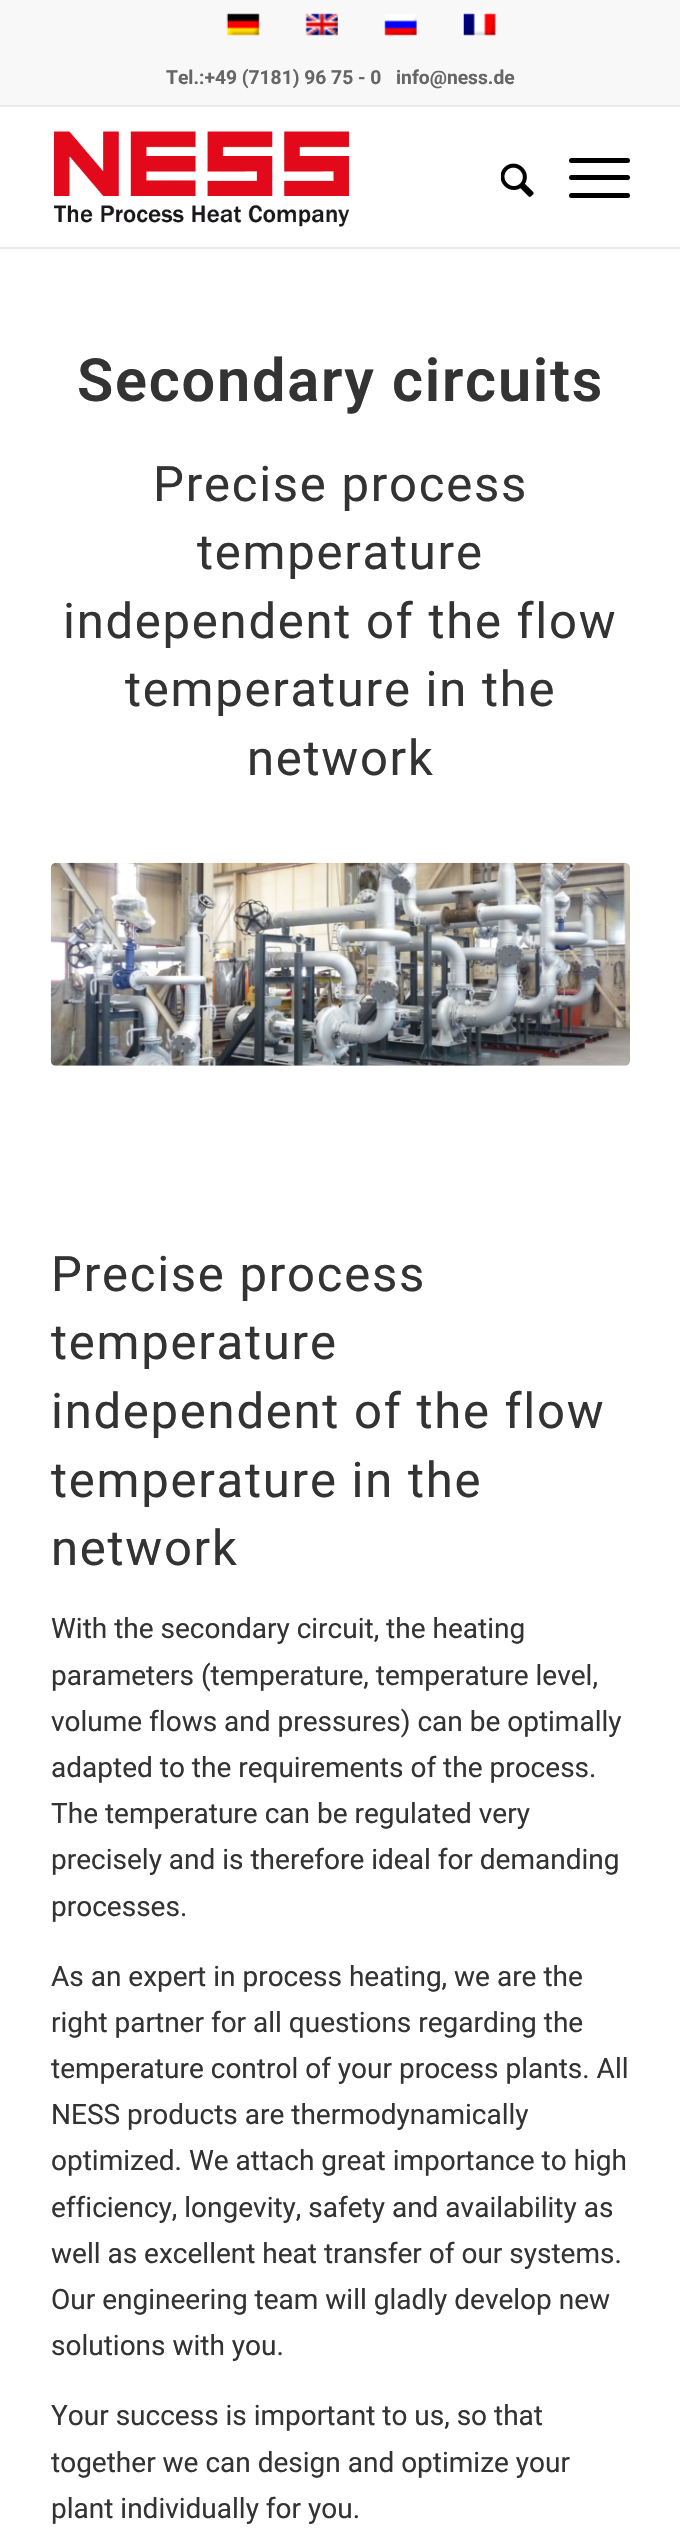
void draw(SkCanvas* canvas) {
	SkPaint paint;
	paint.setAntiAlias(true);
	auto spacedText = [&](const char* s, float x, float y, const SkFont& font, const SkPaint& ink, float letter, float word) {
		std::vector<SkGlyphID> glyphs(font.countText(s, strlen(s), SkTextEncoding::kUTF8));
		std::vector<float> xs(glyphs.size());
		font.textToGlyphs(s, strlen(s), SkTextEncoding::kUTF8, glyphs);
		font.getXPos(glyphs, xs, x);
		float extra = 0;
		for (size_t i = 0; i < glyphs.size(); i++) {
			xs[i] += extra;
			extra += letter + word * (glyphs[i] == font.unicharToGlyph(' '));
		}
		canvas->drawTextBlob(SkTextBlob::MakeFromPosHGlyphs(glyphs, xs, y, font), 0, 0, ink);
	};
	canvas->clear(0xffffffff);
	paint.setColor(0xfff8f8f8);
	canvas->drawRect(SkRect::MakeXYWH(0, 0, 680, 105), paint);
	paint.setColor(0xffebebeb);
	canvas->drawRect(SkRect::MakeXYWH(0, 105, 680, 2), paint);
	canvas->drawImageRect(SkImages::DeferredFromEncodedData(SkData::MakeFromFileName("img1.png")), SkRect::MakeXYWH(226, 13, 34, 23), SkSamplingOptions());
	canvas->drawImageRect(SkImages::DeferredFromEncodedData(SkData::MakeFromFileName("img2.png")), SkRect::MakeXYWH(305, 13, 33, 23), SkSamplingOptions());
	canvas->drawImageRect(SkImages::DeferredFromEncodedData(SkData::MakeFromFileName("img3.png")), SkRect::MakeXYWH(384, 14, 33, 22), SkSamplingOptions());
	canvas->drawImageRect(SkImages::DeferredFromEncodedData(SkData::MakeFromFileName("img4.png")), SkRect::MakeXYWH(463, 13, 33, 23), SkSamplingOptions());
	SkFont f1(fontMgr->matchFamilyStyle("Roboto", SkFontStyle::Bold()), 19.25);
	f1.setSubpixel(true);
	paint.setColor(0xff666666);
	canvas->drawString("Tel.:+49 (7181) 96 75 - 0", 166, 84, f1, paint);
	canvas->drawString("info@ness.de", 396, 84, f1, paint);
	paint.setColor(0xffebebeb);
	canvas->drawRect(SkRect::MakeXYWH(0, 247, 680, 2), paint);
	canvas->drawImageRect(SkImages::DeferredFromEncodedData(SkData::MakeFromFileName("img5.png")), SkRect::MakeXYWH(54, 131, 295, 96), SkSamplingOptions());
	canvas->drawImageRect(SkImages::DeferredFromEncodedData(SkData::MakeFromFileName("img6.png")), SkRect::MakeXYWH(501, 163, 33, 34), SkSamplingOptions());
	paint.setColor(0xff000000);
	canvas->drawRoundRect(SkRect::MakeXYWH(569, 175, 61, 5), 2.5, 2.5, paint);
	canvas->drawRoundRect(SkRect::MakeXYWH(569, 158, 61, 5), 2.5, 2.5, paint);
	canvas->drawRoundRect(SkRect::MakeXYWH(569, 193, 61, 5), 2.5, 2.5, paint);
	SkFont f2(fontMgr->matchFamilyStyle("Roboto", SkFontStyle(600, SkFontStyle::kNormal_Width, SkFontStyle::kUpright_Slant)), 59.5);
	f2.setSubpixel(true);
	paint.setColor(0xff333333);
	spacedText("Secondary circuits", 77, 401, f2, paint, 1.75, 0);
	SkFont f3(fontMgr->matchFamilyStyle("Roboto", SkFontStyle::Normal()), 49);
	f3.setSubpixel(true);
	spacedText("Precise process", 153, 501, f3, paint, 1.75, 0);
	spacedText("temperature", 197, 569, f3, paint, 1.75, 0);
	spacedText("independent of the flow", 63, 638, f3, paint, 1.75, 0);
	spacedText("temperature in the", 125, 706, f3, paint, 1.75, 0);
	spacedText("network", 247, 775, f3, paint, 1.75, 0);
	canvas->drawImageRect(SkImages::DeferredFromEncodedData(SkData::MakeFromFileName("img7.png")), SkRect::MakeXYWH(50, 862, 580, 204), SkSamplingOptions());
	spacedText("Precise process", 51, 1291, f3, paint, 1.75, 0);
	spacedText("temperature", 51, 1359, f3, paint, 1.75, 0);
	spacedText("independent of the flow", 51, 1428, f3, paint, 1.75, 0);
	spacedText("temperature in the", 51, 1497, f3, paint, 1.75, 0);
	spacedText("network", 51, 1565, f3, paint, 1.75, 0);
	SkFont f4(fontMgr->matchFamilyStyle("Roboto", SkFontStyle::Normal()), 28);
	f4.setSubpixel(true);
	canvas->drawString("With the secondary circuit, the heating", 51, 1638, f4, paint);
	canvas->drawString("parameters (temperature, temperature level,", 51, 1685, f4, paint);
	canvas->drawString("volume flows and pressures) can be optimally", 51, 1731, f4, paint);
	canvas->drawString("adapted to the requirements of the process.", 51, 1777, f4, paint);
	canvas->drawString("The temperature can be regulated very", 51, 1823, f4, paint);
	canvas->drawString("precisely and is therefore ideal for demanding", 51, 1869, f4, paint);
	canvas->drawString("processes.", 51, 1916, f4, paint);
	canvas->drawString("As an expert in process heating, we are the", 51, 1986, f4, paint);
	canvas->drawString("right partner for all questions regarding the", 51, 2032, f4, paint);
	canvas->drawString("temperature control of your process plants. All", 51, 2078, f4, paint);
	canvas->drawString("NESS products are thermodynamically", 51, 2124, f4, paint);
	canvas->drawString("optimized. We attach great importance to high", 51, 2170, f4, paint);
	canvas->drawString("efficiency, longevity, safety and availability as", 51, 2217, f4, paint);
	canvas->drawString("well as excellent heat transfer of our systems.", 51, 2263, f4, paint);
	canvas->drawString("Our engineering team will gladly develop new", 51, 2309, f4, paint);
	canvas->drawString("solutions with you.", 51, 2355, f4, paint);
	canvas->drawString("Your success is important to us, so that", 51, 2425, f4, paint);
	canvas->drawString("together we can design and optimize your", 51, 2472, f4, paint);
	canvas->drawString("plant individually for you.", 51, 2518, f4, paint);
}
